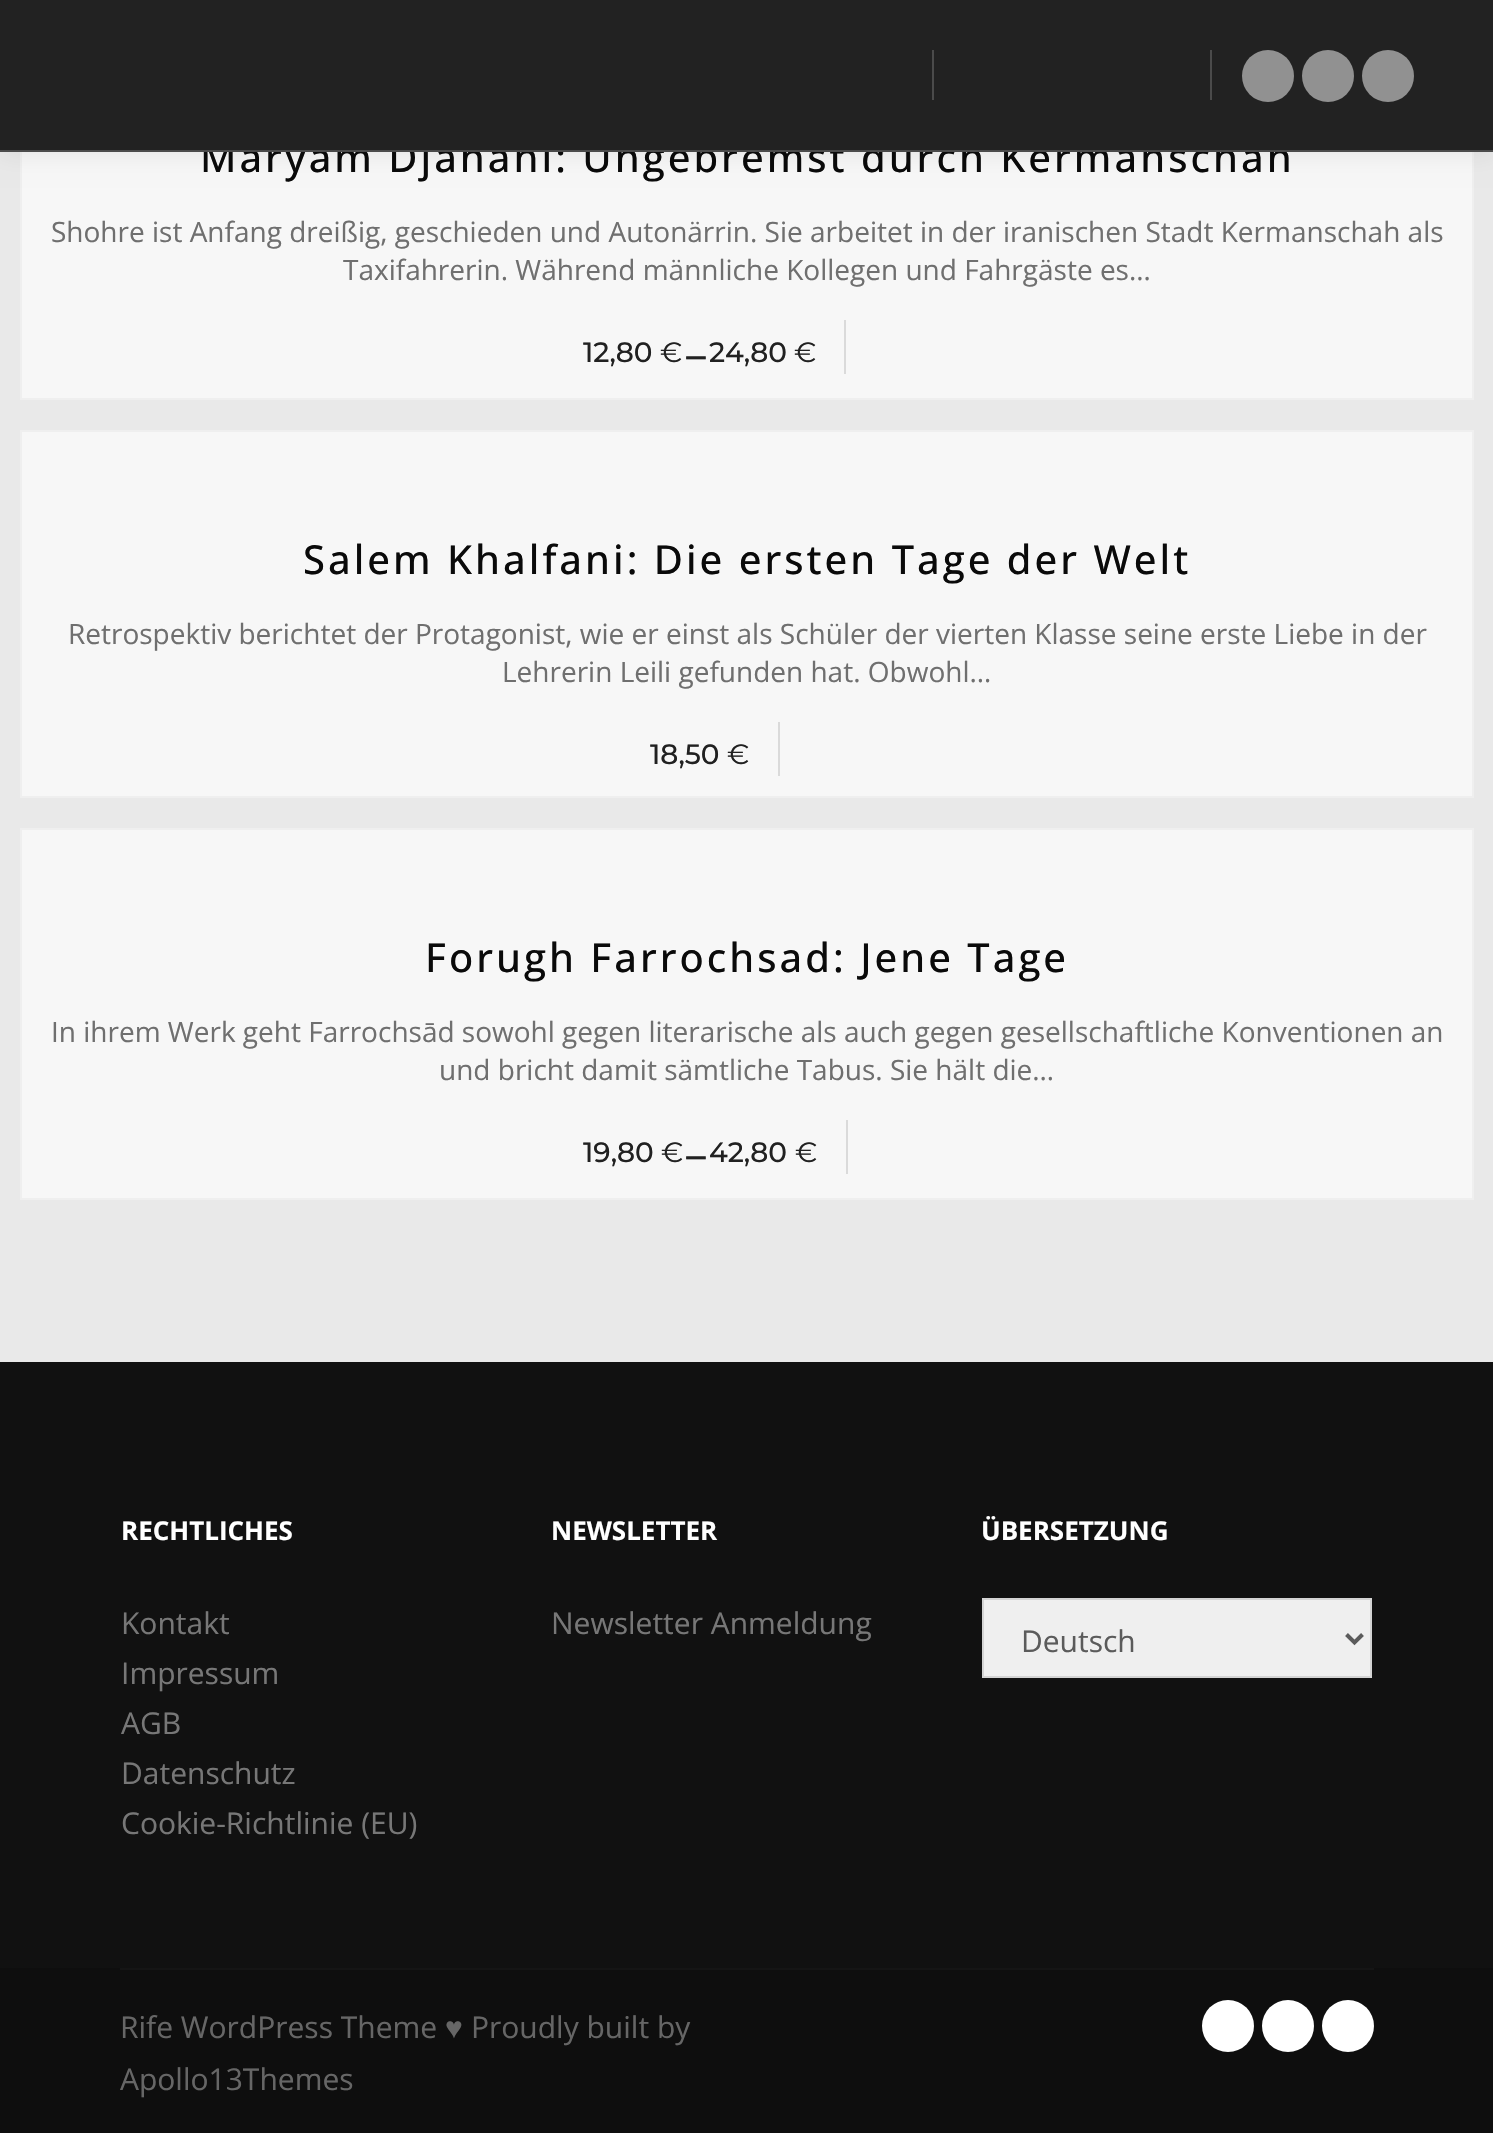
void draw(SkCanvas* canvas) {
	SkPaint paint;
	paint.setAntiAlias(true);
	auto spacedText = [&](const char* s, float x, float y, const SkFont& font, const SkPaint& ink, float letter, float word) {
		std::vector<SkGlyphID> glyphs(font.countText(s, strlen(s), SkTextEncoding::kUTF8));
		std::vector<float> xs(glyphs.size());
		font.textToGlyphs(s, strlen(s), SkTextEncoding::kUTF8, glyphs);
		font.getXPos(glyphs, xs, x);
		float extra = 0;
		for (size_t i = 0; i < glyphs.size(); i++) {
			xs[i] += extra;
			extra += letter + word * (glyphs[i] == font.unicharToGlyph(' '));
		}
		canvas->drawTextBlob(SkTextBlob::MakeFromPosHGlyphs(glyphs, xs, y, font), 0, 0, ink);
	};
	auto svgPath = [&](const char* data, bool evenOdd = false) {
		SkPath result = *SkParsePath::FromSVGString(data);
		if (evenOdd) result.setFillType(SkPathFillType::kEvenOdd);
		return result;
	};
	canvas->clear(0xffe9e9e9);
	paint.setColor(0xfff7f7f7);
	canvas->drawRect(SkRect::MakeXYWH(22, 152, 1450, 246), paint);
	paint.setStroke(true);
	paint.setStrokeWidth(2);
	paint.setColor(0xffefefef);
	canvas->drawRect(SkRect::MakeXYWH(21, 29, 1452, 370), paint);
	paint.setStroke(false);
	paint.setColor(0x17000000);
	paint.setMaskFilter(SkMaskFilter::MakeBlur(kNormal_SkBlurStyle, 12));
	canvas->drawRect(SkRect::MakeXYWH(0, 0, 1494, 152), paint);
	paint.setMaskFilter(nullptr);
	SkFont f1(fontMgr->matchFamilyStyle("Open Sans", SkFontStyle(500, SkFontStyle::kNormal_Width, SkFontStyle::kUpright_Slant)), 40);
	f1.setSubpixel(true);
	paint.setColor(0xff0a0a0a);
	spacedText("Maryam Djahani: Ungebremst durch Kermānschāh", 200, 172, f1, paint, 3, 0);
	paint.setColor(0xff222222);
	canvas->drawRect(SkRect::MakeXYWH(0, 0, 1493, 150), paint);
	paint.setColor(0xff4b4b4b);
	canvas->drawRect(SkRect::MakeXYWH(0, 150, 1493, 2), paint);
	canvas->drawRect(SkRect::MakeXYWH(932, 50, 2, 50), paint);
	canvas->drawRect(SkRect::MakeXYWH(1210, 50, 2, 50), paint);
	paint.setColor(0xff919191);
	canvas->drawCircle(1268, 76, 26, paint);
	canvas->drawCircle(1328, 76, 26, paint);
	canvas->drawCircle(1388, 76, 26, paint);
	SkFont f2(fontMgr->matchFamilyStyle("Open Sans", SkFontStyle::Normal()), 28);
	f2.setSubpixel(true);
	paint.setColor(0xff6f6f6f);
	canvas->drawString("Shohre ist Anfang dreißig, geschieden und Autonärrin. Sie arbeitet in der iranischen Stadt Kermanschah als", 51, 242, f2, paint);
	canvas->drawString("Taxifahrerin. Während männliche Kollegen und Fahrgäste es…", 343, 280, f2, paint);
	SkFont f3(fontMgr->matchFamilyStyle("Montserrat", SkFontStyle(500, SkFontStyle::kNormal_Width, SkFontStyle::kUpright_Slant)), 28);
	f3.setSubpixel(true);
	paint.setColor(0xff212121);
	canvas->drawString("12,80", 583, 362, f3, paint);
	SkFont f4(fontMgr->matchFamilyStyle("Montserrat", SkFontStyle::Normal()), 28);
	f4.setSubpixel(true);
	canvas->drawString("€", 660, 362, f4, paint);
	SkFont f5(fontMgr->matchFamilyStyle("Roboto", SkFontStyle::Normal()), 40);
	f5.setSubpixel(true);
	canvas->drawString("–", 683, 372, f5, paint);
	canvas->drawString("24,80", 709, 362, f3, paint);
	canvas->drawString("€", 794, 362, f4, paint);
	paint.setColor(0xffdadada);
	canvas->drawRect(SkRect::MakeXYWH(844, 320, 2, 54), paint);
	paint.setColor(0xfff7f7f7);
	canvas->drawRect(SkRect::MakeXYWH(21, 431, 1452, 366), paint);
	paint.setStroke(true);
	paint.setColor(0xffefefef);
	canvas->drawRect(SkRect::MakeXYWH(21, 431, 1452, 366), paint);
	paint.setStroke(false);
	paint.setColor(0xff0a0a0a);
	spacedText("Salem Khalfani: Die ersten Tage der Welt", 303, 574, f1, paint, 3, 0);
	paint.setColor(0xff6f6f6f);
	canvas->drawString("Retrospektiv berichtet der Protagonist, wie er einst als Schüler der vierten Klasse seine erste Liebe in der", 68, 644, f2, paint);
	canvas->drawString("Lehrerin Leili gefunden hat. Obwohl…", 502, 682, f2, paint);
	paint.setColor(0xff212121);
	canvas->drawString("18,50", 650, 764, f3, paint);
	canvas->drawString("€", 727, 764, f4, paint);
	paint.setColor(0xffdadada);
	canvas->drawRect(SkRect::MakeXYWH(778, 722, 2, 54), paint);
	paint.setColor(0xfff7f7f7);
	canvas->drawRect(SkRect::MakeXYWH(21, 829, 1452, 370), paint);
	paint.setStroke(true);
	paint.setColor(0xffefefef);
	canvas->drawRect(SkRect::MakeXYWH(21, 829, 1452, 370), paint);
	paint.setStroke(false);
	paint.setColor(0xff0a0a0a);
	spacedText("Forugh Farrochsad: Jene Tage", 425, 972, f1, paint, 3, 0);
	paint.setColor(0xff6f6f6f);
	canvas->drawString("In ihrem Werk geht Farrochsād sowohl gegen literarische als auch gegen gesellschaftliche Konventionen an", 51, 1042, f2, paint);
	canvas->drawString("und bricht damit sämtliche Tabus. Sie hält die…", 439, 1080, f2, paint);
	paint.setColor(0xff212121);
	canvas->drawString("19,80", 583, 1162, f3, paint);
	canvas->drawString("€", 661, 1162, f4, paint);
	canvas->drawString("–", 683, 1172, f5, paint);
	canvas->drawString("42,80", 709, 1162, f3, paint);
	canvas->drawString("€", 795, 1162, f4, paint);
	paint.setColor(0xffdadada);
	canvas->drawRect(SkRect::MakeXYWH(846, 1120, 2, 54), paint);
	paint.setColor(0xff111111);
	canvas->drawRect(SkRect::MakeXYWH(0, 1362, 1493, 606), paint);
	SkFont f6(fontMgr->matchFamilyStyle("Open Sans", SkFontStyle::Bold()), 26);
	f6.setSubpixel(true);
	paint.setColor(0xffffffff);
	canvas->drawString("RECHTLICHES", 121, 1540, f6, paint);
	SkFont f7(fontMgr->matchFamilyStyle("Open Sans", SkFontStyle::Normal()), 30);
	f7.setSubpixel(true);
	paint.setColor(0xff777777);
	canvas->drawString("Kontakt", 121, 1634, f7, paint);
	canvas->drawString("Impressum", 121, 1684, f7, paint);
	canvas->drawString("AGB", 121, 1734, f7, paint);
	canvas->drawString("Datenschutz", 121, 1784, f7, paint);
	canvas->drawString("Cookie-Richtlinie (EU)", 121, 1834, f7, paint);
	paint.setColor(0xffffffff);
	canvas->drawString("NEWSLETTER", 551, 1540, f6, paint);
	paint.setColor(0xff777777);
	canvas->drawString("Newsletter Anmeldung", 551, 1634, f7, paint);
	paint.setColor(0xffffffff);
	canvas->drawString("ÜBERSETZUNG", 981, 1540, f6, paint);
	paint.setColor(0xffefefef);
	canvas->drawRect(SkRect::MakeXYWH(983, 1599, 388, 78), paint);
	paint.setStroke(true);
	paint.setColor(0xffd4d4d4);
	canvas->drawRect(SkRect::MakeXYWH(983, 1599, 388, 78), paint);
	paint.setStrokeWidth(4);
	paint.setColor(0xff5b5b5b);
	canvas->drawPath(svgPath("M1346.5 1634.5L1354.5 1642.5L1362.5 1634.5"), paint);
	paint.setStroke(false);
	canvas->drawString("Deutsch", 1021, 1652, f7, paint);
	paint.setColor(0xff0e0e0e);
	canvas->drawRect(SkRect::MakeXYWH(0, 1968, 1493, 165), paint);
	paint.setColor(0xff151515);
	canvas->drawRect(SkRect::MakeXYWH(120, 1968, 1254, 2), paint);
	paint.setColor(0xff666666);
	canvas->drawString("Rife WordPress Theme", 120, 2038, f7, paint);
	SkFont f8(fontMgr->matchFamilyStyle("Liberation Sans", SkFontStyle::Normal()), 30);
	f8.setSubpixel(true);
	canvas->drawString("♥", 445, 2038, f8, paint);
	canvas->drawString("Proudly built by", 471, 2038, f7, paint);
	canvas->drawString("Apollo13Themes", 120, 2090, f7, paint);
	paint.setColor(0xffffffff);
	canvas->drawCircle(1228, 2026, 26, paint);
	canvas->drawCircle(1288, 2026, 26, paint);
	canvas->drawCircle(1348, 2026, 26, paint);
}
